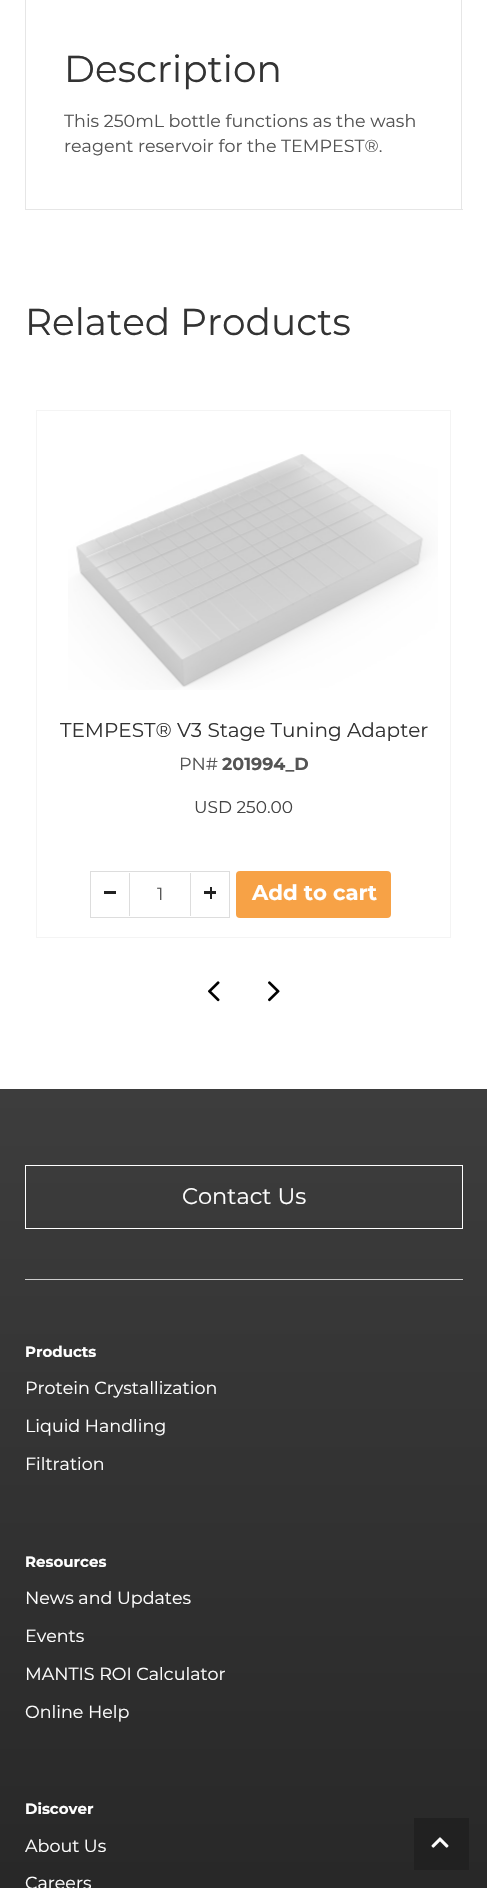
void draw(SkCanvas* canvas) {
	SkPaint paint;
	paint.setAntiAlias(true);
	canvas->clear(0xffffffff);
	paint.setColor(0xffe6e6e6);
	canvas->drawRect(SkRect::MakeXYWH(461, 0, 1, 210), paint);
	canvas->drawRect(SkRect::MakeXYWH(25, 209, 438, 1), paint);
	canvas->drawRect(SkRect::MakeXYWH(25, 0, 1, 210), paint);
	SkFont f1(fontMgr->matchFamilyStyle("Montserrat", SkFontStyle::Normal()), 37.5);
	f1.setSubpixel(true);
	paint.setColor(0xff333333);
	canvas->drawString("Description", 64, 82, f1, paint);
	SkFont f2(fontMgr->matchFamilyStyle("Montserrat", SkFontStyle::Normal()), 17.5);
	f2.setSubpixel(true);
	paint.setColor(0xff545454);
	canvas->drawString("This 250mL bottle functions as the wash", 64, 127, f2, paint);
	canvas->drawString("reagent reservoir for the TEMPEST®.", 64, 152, f2, paint);
	paint.setColor(0xff333333);
	canvas->drawString("Related Products", 25, 335, f1, paint);
	paint.setStroke(true);
	paint.setStrokeWidth(1);
	paint.setColor(0xfff4f4f4);
	canvas->drawRect(SkRect::MakeXYWH(36.5, 410.5, 414, 527), paint);
	canvas->drawImageRect(SkImages::DeferredFromEncodedData(SkData::MakeFromFileName("img1.png")), SkRect::MakeXYWH(68, 454, 370, 236), SkSamplingOptions());
	SkFont f3(fontMgr->matchFamilyStyle("Montserrat", SkFontStyle::Normal()), 20);
	f3.setSubpixel(true);
	paint.setStroke(false);
	paint.setColor(0xff333333);
	canvas->drawString("TEMPEST® V3 Stage Tuning Adapter", 60, 737, f3, paint);
	paint.setColor(0xff545454);
	canvas->drawString("PN#", 179, 770, f2, paint);
	SkFont f4(fontMgr->matchFamilyStyle("Montserrat", SkFontStyle::Bold()), 17.5);
	f4.setSubpixel(true);
	canvas->drawString("201994_D", 222, 770, f4, paint);
	SkFont f5(fontMgr->matchFamilyStyle("Montserrat", SkFontStyle::Normal()), 17);
	f5.setSubpixel(true);
	paint.setColor(0xff444444);
	canvas->drawString("USD 250.00", 194, 813, f5, paint);
	paint.setStroke(true);
	paint.setColor(0xffdddddd);
	canvas->drawRect(SkRect::MakeXYWH(90.5, 871.5, 139, 46), paint);
	paint.setStroke(false);
	paint.setColor(0xff212121);
	canvas->drawRect(SkRect::MakeXYWH(104, 891, 12, 3), paint);
	paint.setColor(0xffdddddd);
	canvas->drawRect(SkRect::MakeXYWH(190, 873, 1, 43), paint);
	canvas->drawRect(SkRect::MakeXYWH(129, 873, 1, 43), paint);
	paint.setColor(0xff545454);
	canvas->drawString("1", 157, 900, f2, paint);
	paint.setColor(0xff212121);
	canvas->drawRect(SkRect::MakeXYWH(204, 891, 12, 3), paint);
	canvas->drawRect(SkRect::MakeXYWH(210, 887, 2, 12), paint);
	paint.setColor(0xfff7a246);
	canvas->drawRoundRect(SkRect::MakeXYWH(236, 871, 155, 47), 4, 4, paint);
	SkFont f6(fontMgr->matchFamilyStyle("Montserrat", SkFontStyle::Bold()), 21.25);
	f6.setSubpixel(true);
	paint.setColor(0xffffffff);
	canvas->drawString("Add to cart", 252, 900, f6, paint);
	canvas->drawImageRect(SkImages::DeferredFromEncodedData(SkData::MakeFromFileName("img2.png")), SkRect::MakeXYWH(208, 981, 12, 21), SkSamplingOptions());
	canvas->drawImageRect(SkImages::DeferredFromEncodedData(SkData::MakeFromFileName("img3.png")), SkRect::MakeXYWH(268, 981, 12, 21), SkSamplingOptions());
	{
		const SkColor colors[] = {0xff3d3d3d, 0xff1c1c1c};
		const float stops[] = {0, 1};
		const SkPoint ends[] = {{244, 1089}, {244, 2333}};
		paint.setShader(SkGradientShader::MakeLinear(ends, colors, stops, 2, SkTileMode::kClamp));
		paint.setAlpha(255);
	}
	canvas->drawRect(SkRect::MakeXYWH(0, 1089, 487, 799), paint);
	paint.setStroke(true);
	paint.setShader(nullptr);
	paint.setColor(0xffffffff);
	canvas->drawRect(SkRect::MakeXYWH(25.5, 1165.5, 437, 63), paint);
	SkFont f7(fontMgr->matchFamilyStyle("Montserrat", SkFontStyle::Normal()), 22.5);
	f7.setSubpixel(true);
	paint.setStroke(false);
	canvas->drawString("Contact Us", 182, 1204, f7, paint);
	paint.setColor(0xffcccccc);
	canvas->drawRect(SkRect::MakeXYWH(25, 1279, 438, 1), paint);
	SkFont f8(fontMgr->matchFamilyStyle("Montserrat", SkFontStyle::Bold()), 15);
	f8.setSubpixel(true);
	paint.setColor(0xffffffff);
	canvas->drawString("Products", 25, 1357, f8, paint);
	canvas->drawString("Protein Crystallization", 25, 1394, f2, paint);
	canvas->drawString("Liquid Handling", 25, 1432, f2, paint);
	canvas->drawString("Filtration", 25, 1470, f2, paint);
	canvas->drawString("Resources", 25, 1567, f8, paint);
	canvas->drawString("News and Updates", 25, 1604, f2, paint);
	canvas->drawString("Events", 25, 1642, f2, paint);
	canvas->drawString("MANTIS ROI Calculator", 25, 1680, f2, paint);
	canvas->drawString("Online Help", 25, 1718, f2, paint);
	canvas->drawString("Discover", 25, 1814, f8, paint);
	canvas->drawString("About Us", 25, 1852, f2, paint);
	canvas->drawString("Careers", 25, 1889, f2, paint);
	paint.setColor(0xff212121);
	canvas->drawRect(SkRect::MakeXYWH(414, 1818, 55, 52), paint);
	canvas->drawImageRect(SkImages::DeferredFromEncodedData(SkData::MakeFromFileName("img4.png")), SkRect::MakeXYWH(431, 1837, 18, 11), SkSamplingOptions());
}
